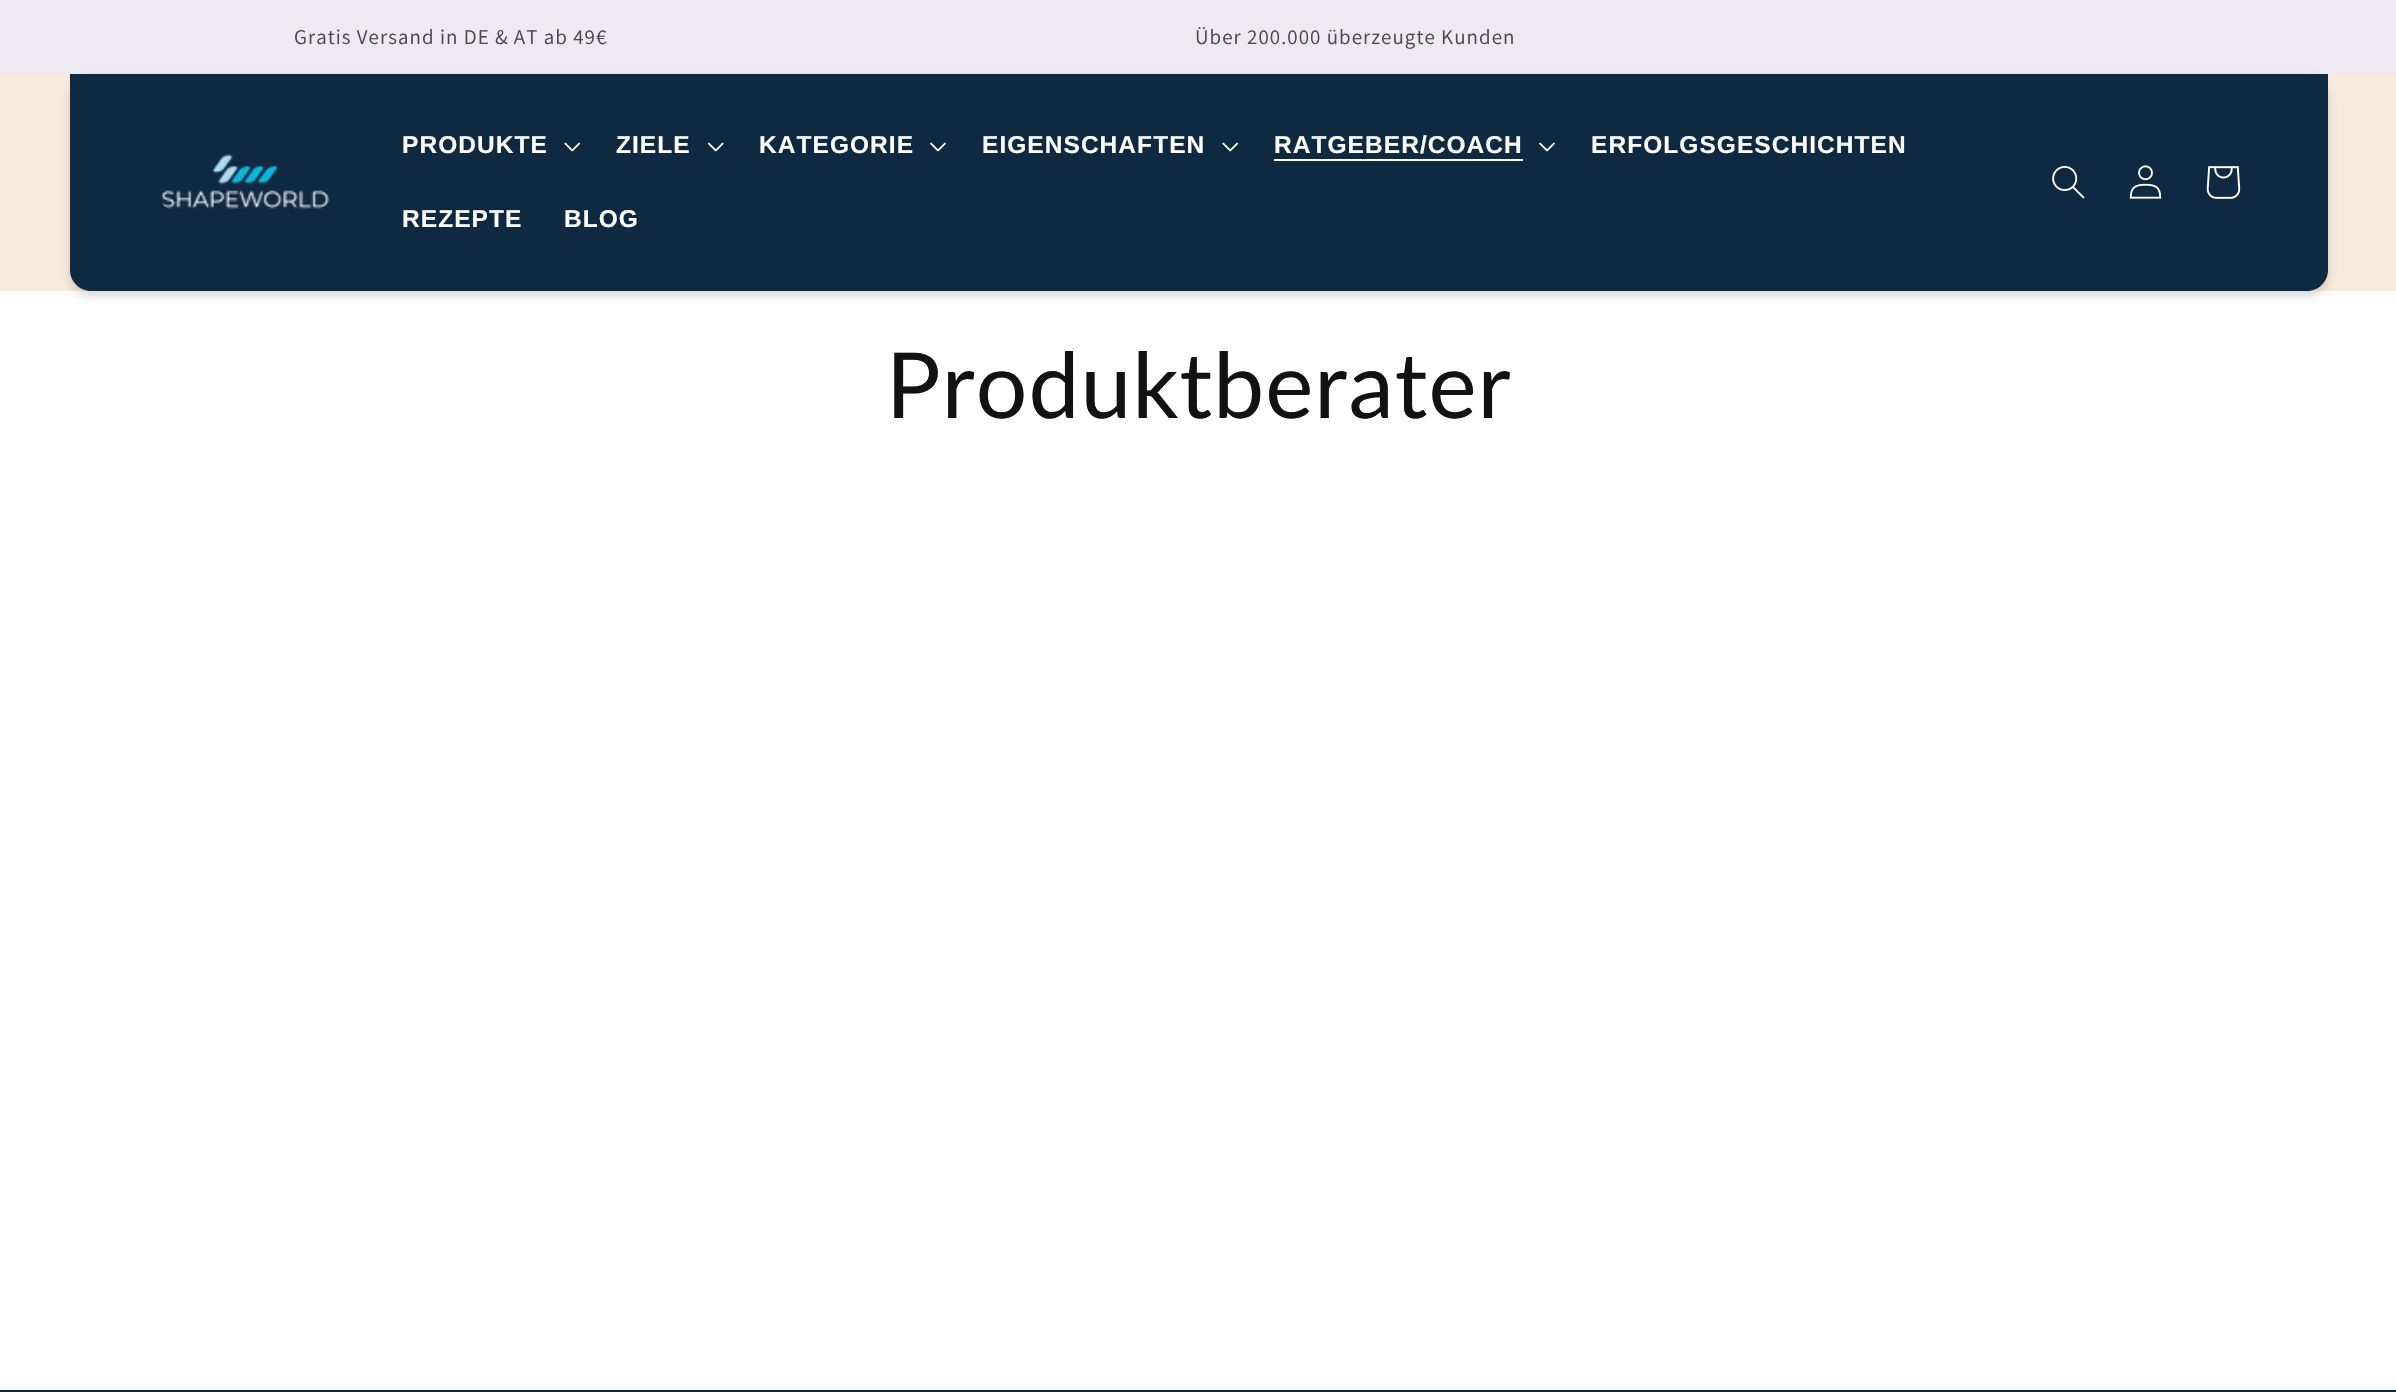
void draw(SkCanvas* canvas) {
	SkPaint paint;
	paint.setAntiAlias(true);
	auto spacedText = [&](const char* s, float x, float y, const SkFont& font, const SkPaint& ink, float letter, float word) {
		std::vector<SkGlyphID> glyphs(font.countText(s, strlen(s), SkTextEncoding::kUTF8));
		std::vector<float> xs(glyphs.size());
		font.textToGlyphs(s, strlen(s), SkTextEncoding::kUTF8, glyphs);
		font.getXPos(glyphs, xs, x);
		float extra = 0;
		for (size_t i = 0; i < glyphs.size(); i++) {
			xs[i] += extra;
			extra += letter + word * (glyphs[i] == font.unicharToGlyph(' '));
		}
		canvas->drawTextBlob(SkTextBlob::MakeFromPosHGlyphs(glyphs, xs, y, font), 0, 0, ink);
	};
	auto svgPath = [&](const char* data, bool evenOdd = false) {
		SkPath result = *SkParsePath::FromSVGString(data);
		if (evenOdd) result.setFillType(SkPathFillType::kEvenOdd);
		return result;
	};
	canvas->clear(0xffffffff);
	paint.setColor(0xffedeaf1);
	canvas->drawRect(SkRect::MakeXYWH(0, 0, 2396, 74), paint);
	SkFont f1(fontMgr->matchFamilyStyle("Assistant", SkFontStyle::Normal()), 21);
	f1.setSubpixel(true);
	paint.setColor(0xff49484a);
	spacedText("Gratis Versand in DE & AT ab 49€", 294, 44, f1, paint, 1.05, 0);
	spacedText("Über 200.000 überzeugte Kunden", 1195, 44, f1, paint, 1.05, 0);
	paint.setColor(0xfff8ebdb);
	canvas->drawRect(SkRect::MakeXYWH(0, 74, 2396, 217), paint);
	paint.setColor(0x29000000);
	paint.setMaskFilter(SkMaskFilter::MakeBlur(kNormal_SkBlurStyle, 5));
	canvas->drawRoundRect(SkRect::MakeXYWH(70, 79, 2258, 217), 21, 21, paint);
	paint.setMaskFilter(nullptr);
	paint.setColor(0xff0f2941);
	canvas->drawPath(svgPath("M70 74H2328V270C2328 281.5 2318.5 291 2307 291H91C79.5 291 70 281.5 70 270Z"), paint);
	canvas->drawImageRect(SkImages::DeferredFromEncodedData(SkData::MakeFromFileName("img1.png")), SkRect::MakeXYWH(161, 153, 169, 56), SkSamplingOptions());
	SkFont f2(fontMgr->matchFamilyStyle("Liberation Sans", SkFontStyle::Bold()), 24.5);
	f2.setSubpixel(true);
	paint.setColor(0xffffffff);
	spacedText("PRODUKTE", 402, 153, f2, paint, 1.05, 0);
	canvas->drawImageRect(SkImages::DeferredFromEncodedData(SkData::MakeFromFileName("img2.png")), SkRect::MakeXYWH(564, 142, 17, 10), SkSamplingOptions());
	spacedText("ZIELE", 616, 153, f2, paint, 1.05, 0);
	canvas->drawImageRect(SkImages::DeferredFromEncodedData(SkData::MakeFromFileName("img3.png")), SkRect::MakeXYWH(707, 142, 17, 10), SkSamplingOptions());
	spacedText("KATEGORIE", 759, 153, f2, paint, 1.05, 0);
	canvas->drawImageRect(SkImages::DeferredFromEncodedData(SkData::MakeFromFileName("img4.png")), SkRect::MakeXYWH(930, 142, 16, 10), SkSamplingOptions());
	spacedText("EIGENSCHAFTEN", 982, 153, f2, paint, 1.05, 0);
	canvas->drawImageRect(SkImages::DeferredFromEncodedData(SkData::MakeFromFileName("img2.png")), SkRect::MakeXYWH(1222, 142, 17, 10), SkSamplingOptions());
	spacedText("RATGEBER/COACH", 1274, 153, f2, paint, 1.05, 0);
	canvas->drawRect(SkRect::MakeXYWH(1274, 159, 249, 2), paint);
	canvas->drawImageRect(SkImages::DeferredFromEncodedData(SkData::MakeFromFileName("img4.png")), SkRect::MakeXYWH(1539, 142, 16, 10), SkSamplingOptions());
	spacedText("ERFOLGSGESCHICHTEN", 1591, 153, f2, paint, 1.05, 0);
	spacedText("REZEPTE", 402, 227, f2, paint, 1.05, 0);
	spacedText("BLOG", 564, 227, f2, paint, 1.05, 0);
	canvas->drawImageRect(SkImages::DeferredFromEncodedData(SkData::MakeFromFileName("img5.png")), SkRect::MakeXYWH(2052, 166, 33, 33), SkSamplingOptions());
	canvas->drawImageRect(SkImages::DeferredFromEncodedData(SkData::MakeFromFileName("img6.png")), SkRect::MakeXYWH(2129, 165, 33, 34), SkSamplingOptions());
	canvas->drawImageRect(SkImages::DeferredFromEncodedData(SkData::MakeFromFileName("img7.png")), SkRect::MakeXYWH(2206, 166, 35, 33), SkSamplingOptions());
	SkFont f3(fontMgr->matchFamilyStyle("Lato", SkFontStyle::Normal()), 91);
	f3.setSubpixel(true);
	paint.setColor(0xff121212);
	spacedText("Produktberater", 886, 418, f3, paint, 1.05, 0);
	paint.setColor(0xff112941);
	canvas->drawRect(SkRect::MakeXYWH(0, 1390, 2396, 2), paint);
}
